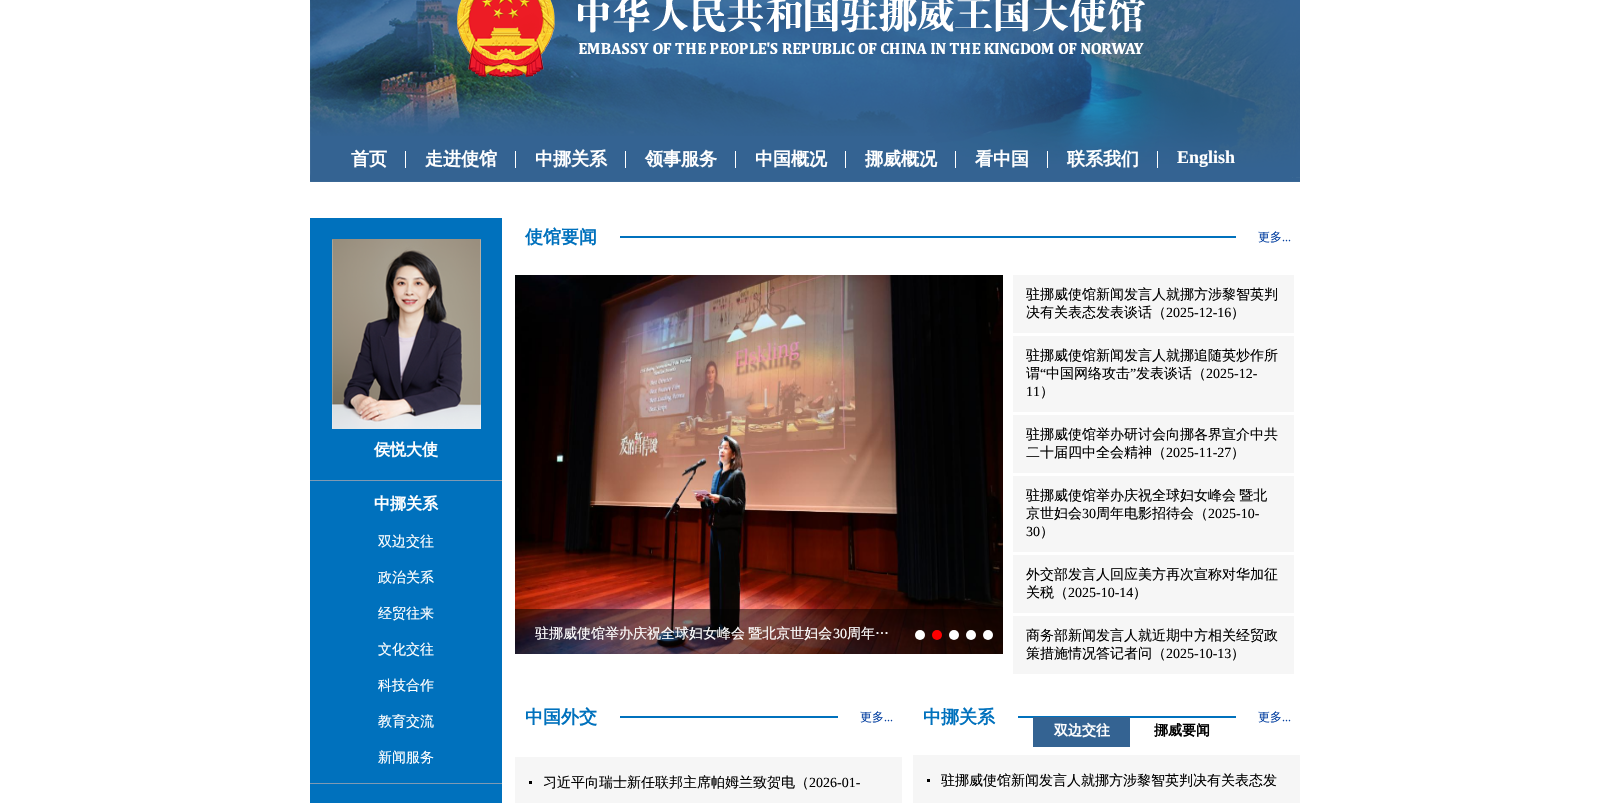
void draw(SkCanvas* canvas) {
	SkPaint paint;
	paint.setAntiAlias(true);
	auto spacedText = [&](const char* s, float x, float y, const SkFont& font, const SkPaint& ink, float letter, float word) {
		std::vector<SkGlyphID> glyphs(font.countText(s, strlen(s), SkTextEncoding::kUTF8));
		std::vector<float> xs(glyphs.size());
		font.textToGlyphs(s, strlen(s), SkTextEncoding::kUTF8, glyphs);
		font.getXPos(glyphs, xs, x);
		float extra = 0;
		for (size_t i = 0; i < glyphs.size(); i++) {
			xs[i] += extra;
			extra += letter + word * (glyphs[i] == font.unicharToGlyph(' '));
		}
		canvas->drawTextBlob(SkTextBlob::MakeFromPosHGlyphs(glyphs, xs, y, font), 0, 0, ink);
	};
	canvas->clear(0xffffffff);
	canvas->drawImageRect(SkImages::DeferredFromEncodedData(SkData::MakeFromFileName("img1.png")), SkRect::MakeXYWH(310, 0, 990, 182), SkSamplingOptions());
	SkFont f1(fontMgr->matchFamilyStyle("WenQuanYi Zen Hei", SkFontStyle::Bold()), 18);
	f1.setSubpixel(true);
	paint.setColor(0xffffffff);
	canvas->drawString("首页", 351, 165, f1, paint);
	canvas->drawRect(SkRect::MakeXYWH(405, 151, 1, 17), paint);
	canvas->drawString("走进使馆", 425, 165, f1, paint);
	canvas->drawRect(SkRect::MakeXYWH(515, 151, 1, 17), paint);
	canvas->drawString("中挪关系", 535, 165, f1, paint);
	canvas->drawRect(SkRect::MakeXYWH(625, 151, 1, 17), paint);
	canvas->drawString("领事服务", 645, 165, f1, paint);
	canvas->drawRect(SkRect::MakeXYWH(735, 151, 1, 17), paint);
	canvas->drawString("中国概况", 755, 165, f1, paint);
	canvas->drawRect(SkRect::MakeXYWH(845, 151, 1, 17), paint);
	canvas->drawString("挪威概况", 865, 165, f1, paint);
	canvas->drawRect(SkRect::MakeXYWH(955, 151, 1, 17), paint);
	canvas->drawString("看中国", 975, 165, f1, paint);
	canvas->drawRect(SkRect::MakeXYWH(1047, 151, 1, 17), paint);
	canvas->drawString("联系我们", 1067, 165, f1, paint);
	canvas->drawRect(SkRect::MakeXYWH(1157, 151, 1, 17), paint);
	SkFont f2(fontMgr->matchFamilyStyle("Liberation Serif", SkFontStyle::Bold()), 18);
	f2.setSubpixel(true);
	canvas->drawString("English", 1177, 163, f2, paint);
	paint.setColor(0xff0071bd);
	canvas->drawRect(SkRect::MakeXYWH(310, 218, 192, 585), paint);
	canvas->drawImageRect(SkImages::DeferredFromEncodedData(SkData::MakeFromFileName("img2.png")), SkRect::MakeXYWH(332, 239, 149, 190), SkSamplingOptions());
	SkFont f3(fontMgr->matchFamilyStyle("WenQuanYi Zen Hei", SkFontStyle::Bold()), 16);
	f3.setSubpixel(true);
	paint.setColor(0xffffffff);
	canvas->drawString("侯悦大使", 374, 455, f3, paint);
	paint.setColor(0xff7f9ab3);
	canvas->drawRect(SkRect::MakeXYWH(310, 480, 192, 1), paint);
	paint.setColor(0xffffffff);
	canvas->drawString("中挪关系", 374, 509, f3, paint);
	SkFont f4(fontMgr->matchFamilyStyle("WenQuanYi Zen Hei", SkFontStyle(500, SkFontStyle::kNormal_Width, SkFontStyle::kUpright_Slant)), 14);
	f4.setSubpixel(true);
	canvas->drawString("双边交往", 378, 546, f4, paint);
	canvas->drawString("政治关系", 378, 582, f4, paint);
	canvas->drawString("经贸往来", 378, 618, f4, paint);
	canvas->drawString("文化交往", 378, 654, f4, paint);
	canvas->drawString("科技合作", 378, 690, f4, paint);
	canvas->drawString("教育交流", 378, 726, f4, paint);
	canvas->drawString("新闻服务", 378, 762, f4, paint);
	paint.setColor(0xff7f9ab3);
	canvas->drawRect(SkRect::MakeXYWH(310, 783, 192, 1), paint);
	paint.setColor(0xff0071bd);
	canvas->drawString("使馆要闻", 525, 243, f1, paint);
	canvas->drawRect(SkRect::MakeXYWH(620, 236, 616, 2), paint);
	SkFont f5(fontMgr->matchFamilyStyle("WenQuanYi Zen Hei", SkFontStyle(500, SkFontStyle::kNormal_Width, SkFontStyle::kUpright_Slant)), 12);
	f5.setSubpixel(true);
	paint.setColor(0xff0641a1);
	canvas->drawString("更多", 1258, 241, f5, paint);
	SkFont f6(fontMgr->matchFamilyStyle("Liberation Serif", SkFontStyle::Normal()), 12);
	f6.setSubpixel(true);
	canvas->drawString("...", 1282, 241, f6, paint);
	canvas->drawImageRect(SkImages::DeferredFromEncodedData(SkData::MakeFromFileName("img3.png")), SkRect::MakeXYWH(515, 275, 488, 379), SkSamplingOptions());
	paint.setColor(0x80000000);
	canvas->drawRect(SkRect::MakeXYWH(515, 609, 488, 45), paint);
	paint.setColor(0xffffffff);
	spacedText("驻挪威使馆举办庆祝全球妇女峰会 暨北京世妇会", 535, 638, f4, paint, 0, -1);
	SkFont f7(fontMgr->matchFamilyStyle("Liberation Serif", SkFontStyle::Normal()), 14);
	f7.setSubpixel(true);
	canvas->drawString("30", 833, 638, f7, paint);
	canvas->drawString("周年…", 847, 638, f4, paint);
	canvas->drawCircle(920, 635, 5, paint);
	paint.setColor(0xffff0000);
	canvas->drawCircle(937, 635, 5, paint);
	paint.setColor(0xffffffff);
	canvas->drawCircle(954, 635, 5, paint);
	canvas->drawCircle(971, 635, 5, paint);
	canvas->drawCircle(988, 635, 5, paint);
	paint.setColor(0xfff6f6f6);
	canvas->drawRect(SkRect::MakeXYWH(1013, 275, 281, 58), paint);
	paint.setColor(0xff000000);
	canvas->drawString("驻挪威使馆新闻发言人就挪方涉黎智英判", 1026, 299, f4, paint);
	canvas->drawString("决有关表态发表谈话（", 1026, 317, f4, paint);
	canvas->drawString("2025-12-16", 1166, 317, f7, paint);
	canvas->drawString("）", 1231, 317, f4, paint);
	paint.setColor(0xfff6f6f6);
	canvas->drawRect(SkRect::MakeXYWH(1013, 336, 281, 76), paint);
	paint.setColor(0xff000000);
	canvas->drawString("驻挪威使馆新闻发言人就挪追随英炒作所", 1026, 360, f4, paint);
	canvas->drawString("谓", 1026, 378, f4, paint);
	canvas->drawString("“", 1040, 378, f7, paint);
	canvas->drawString("中国网络攻击", 1046, 378, f4, paint);
	canvas->drawString("”", 1130, 378, f7, paint);
	canvas->drawString("发表谈话（", 1136, 378, f4, paint);
	canvas->drawString("2025-12-", 1206, 378, f7, paint);
	canvas->drawString("11", 1026, 396, f7, paint);
	canvas->drawString("）", 1040, 396, f4, paint);
	paint.setColor(0xfff6f6f6);
	canvas->drawRect(SkRect::MakeXYWH(1013, 415, 281, 58), paint);
	paint.setColor(0xff000000);
	canvas->drawString("驻挪威使馆举办研讨会向挪各界宣介中共", 1026, 439, f4, paint);
	canvas->drawString("二十届四中全会精神（", 1026, 457, f4, paint);
	canvas->drawString("2025-11-27", 1166, 457, f7, paint);
	canvas->drawString("）", 1231, 457, f4, paint);
	paint.setColor(0xfff6f6f6);
	canvas->drawRect(SkRect::MakeXYWH(1013, 476, 281, 76), paint);
	paint.setColor(0xff000000);
	spacedText("驻挪威使馆举办庆祝全球妇女峰会 暨北", 1026, 500, f4, paint, 0, -1);
	canvas->drawString("京世妇会", 1026, 518, f4, paint);
	canvas->drawString("30", 1082, 518, f7, paint);
	canvas->drawString("周年电影招待会（", 1096, 518, f4, paint);
	canvas->drawString("2025-10-", 1208, 518, f7, paint);
	canvas->drawString("30", 1026, 536, f7, paint);
	canvas->drawString("）", 1040, 536, f4, paint);
	paint.setColor(0xfff6f6f6);
	canvas->drawRect(SkRect::MakeXYWH(1013, 555, 281, 58), paint);
	paint.setColor(0xff000000);
	canvas->drawString("外交部发言人回应美方再次宣称对华加征", 1026, 579, f4, paint);
	canvas->drawString("关税（", 1026, 597, f4, paint);
	canvas->drawString("2025-10-14", 1068, 597, f7, paint);
	canvas->drawString("）", 1133, 597, f4, paint);
	paint.setColor(0xfff6f6f6);
	canvas->drawRect(SkRect::MakeXYWH(1013, 616, 281, 58), paint);
	paint.setColor(0xff000000);
	canvas->drawString("商务部新闻发言人就近期中方相关经贸政", 1026, 640, f4, paint);
	canvas->drawString("策措施情况答记者问（", 1026, 658, f4, paint);
	canvas->drawString("2025-10-13", 1166, 658, f7, paint);
	canvas->drawString("）", 1231, 658, f4, paint);
	paint.setColor(0xff0071bd);
	canvas->drawString("中国外交", 525, 723, f1, paint);
	canvas->drawRect(SkRect::MakeXYWH(620, 716, 218, 2), paint);
	paint.setColor(0xff0641a1);
	canvas->drawString("更多", 860, 721, f5, paint);
	canvas->drawString("...", 884, 721, f6, paint);
	paint.setColor(0xfff6f6f6);
	canvas->drawRect(SkRect::MakeXYWH(515, 757, 387, 46), paint);
	paint.setColor(0xff000000);
	canvas->drawRect(SkRect::MakeXYWH(529, 781, 3, 3), paint);
	canvas->drawString("习近平向瑞士新任联邦主席帕姆兰致贺电（", 543, 787, f4, paint);
	canvas->drawString("2026-01-", 809, 787, f7, paint);
	paint.setColor(0xff0071bd);
	canvas->drawString("中挪关系", 923, 723, f1, paint);
	paint.setColor(0xff0641a1);
	canvas->drawString("更多", 1258, 721, f5, paint);
	canvas->drawString("...", 1282, 721, f6, paint);
	paint.setColor(0xff0071bd);
	canvas->drawRect(SkRect::MakeXYWH(1018, 716, 218, 2), paint);
	paint.setColor(0xff346392);
	canvas->drawRect(SkRect::MakeXYWH(1033, 717, 97, 30), paint);
	SkFont f8(fontMgr->matchFamilyStyle("WenQuanYi Zen Hei", SkFontStyle::Bold()), 14);
	f8.setSubpixel(true);
	paint.setColor(0xffffffff);
	canvas->drawString("双边交往", 1054, 735, f8, paint);
	paint.setColor(0xff000000);
	canvas->drawString("挪威要闻", 1154, 735, f8, paint);
	paint.setColor(0xfff6f6f6);
	canvas->drawRect(SkRect::MakeXYWH(913, 755, 387, 48), paint);
	paint.setColor(0xff000000);
	canvas->drawRect(SkRect::MakeXYWH(927, 779, 3, 3), paint);
	canvas->drawString("驻挪威使馆新闻发言人就挪方涉黎智英判决有关表态发", 941, 785, f4, paint);
}
